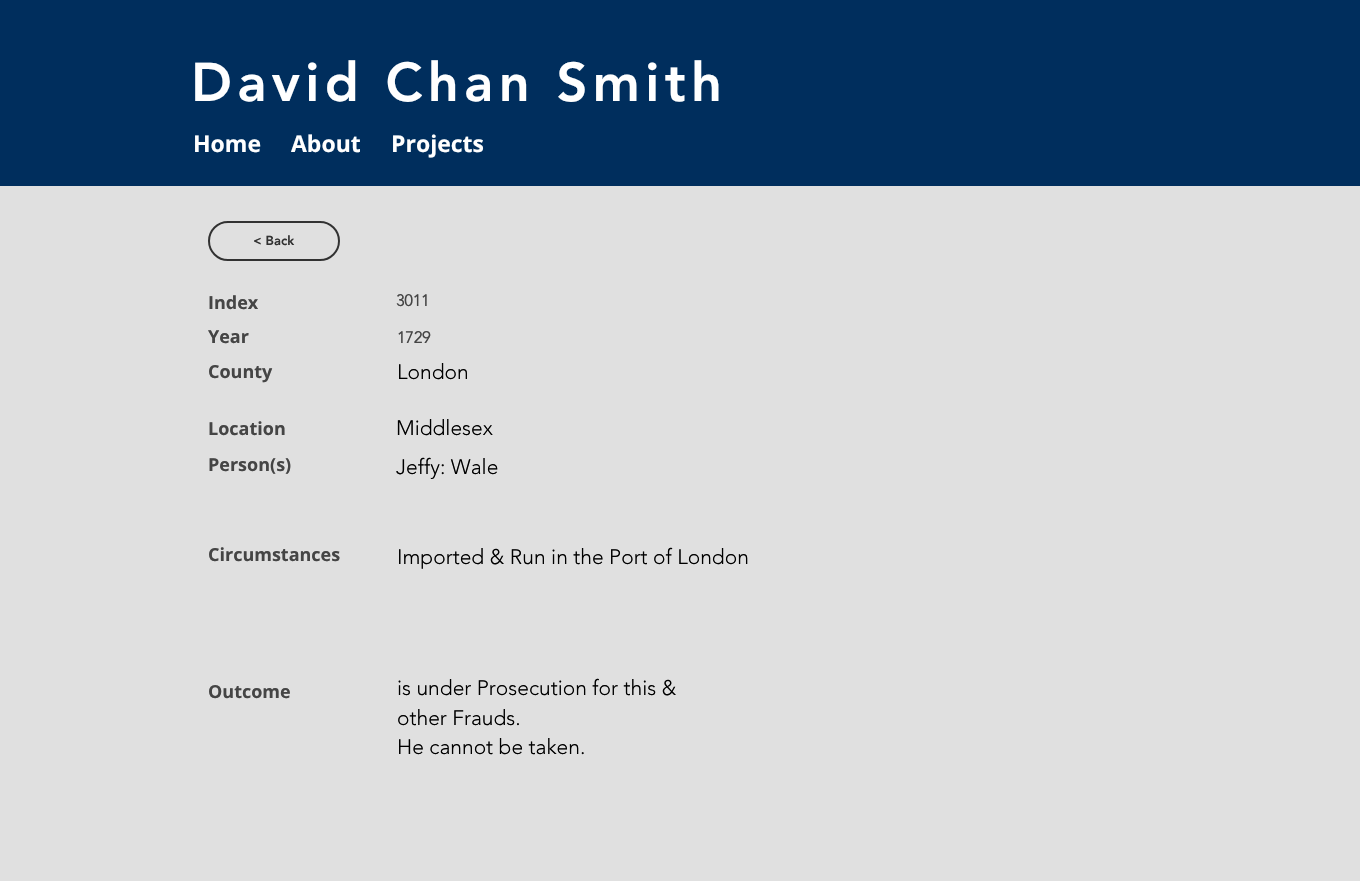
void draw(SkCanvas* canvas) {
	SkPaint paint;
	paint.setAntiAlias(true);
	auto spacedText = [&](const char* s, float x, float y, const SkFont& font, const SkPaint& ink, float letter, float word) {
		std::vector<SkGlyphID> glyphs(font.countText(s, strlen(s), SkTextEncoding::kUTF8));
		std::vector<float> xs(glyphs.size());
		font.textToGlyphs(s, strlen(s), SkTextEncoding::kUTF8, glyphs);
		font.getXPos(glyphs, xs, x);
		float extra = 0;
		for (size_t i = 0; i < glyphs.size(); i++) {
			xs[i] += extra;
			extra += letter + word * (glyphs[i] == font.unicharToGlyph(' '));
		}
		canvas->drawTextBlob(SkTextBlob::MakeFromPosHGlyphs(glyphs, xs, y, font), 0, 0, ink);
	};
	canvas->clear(0xffe0e0e0);
	paint.setColor(0xff002e5d);
	canvas->drawRect(SkRect::MakeXYWH(0, 0, 1360, 186), paint);
	SkFont f1(fontMgr->matchFamilyStyle("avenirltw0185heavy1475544", SkFontStyle(900, SkFontStyle::kNormal_Width, SkFontStyle::kUpright_Slant)), 54);
	f1.setSubpixel(true);
	paint.setColor(0xffffffff);
	spacedText("David Chan Smith", 191, 101, f1, paint, 5.4, 0);
	SkFont f2(fontMgr->matchFamilyStyle("Open Sans", SkFontStyle::Bold()), 23);
	f2.setSubpixel(true);
	canvas->drawString("Home", 193, 152, f2, paint);
	canvas->drawString("About", 291, 152, f2, paint);
	canvas->drawString("Projects", 391, 152, f2, paint);
	paint.setStroke(true);
	paint.setStrokeWidth(2);
	paint.setColor(0xff323232);
	canvas->drawRoundRect(SkRect::MakeXYWH(209, 222, 130, 38), 19, 19, paint);
	SkFont f3(fontMgr->matchFamilyStyle("avenirltw0185heavy1475544", SkFontStyle(900, SkFontStyle::kNormal_Width, SkFontStyle::kUpright_Slant)), 13);
	f3.setSubpixel(true);
	paint.setStroke(false);
	canvas->drawString("< Back", 253, 245, f3, paint);
	SkFont f4(fontMgr->matchFamilyStyle("Open Sans", SkFontStyle::Bold()), 18);
	f4.setSubpixel(true);
	paint.setColor(0xff454545);
	canvas->drawString("Index", 208, 309, f4, paint);
	SkFont f5(fontMgr->matchFamilyStyle("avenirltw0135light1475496", SkFontStyle::Bold()), 16);
	f5.setSubpixel(true);
	canvas->drawString("3011", 396, 306, f5, paint);
	canvas->drawString("Year", 208, 343, f4, paint);
	canvas->drawString("1729", 397, 343, f5, paint);
	canvas->drawString("County", 208, 378, f4, paint);
	SkFont f6(fontMgr->matchFamilyStyle("avenirltw0135light1475496", SkFontStyle(300, SkFontStyle::kNormal_Width, SkFontStyle::kUpright_Slant)), 21);
	f6.setSubpixel(true);
	paint.setColor(0xff000000);
	canvas->drawString("London", 397, 379, f6, paint);
	paint.setColor(0xff454545);
	canvas->drawString("Location", 208, 435, f4, paint);
	paint.setColor(0xff000000);
	canvas->drawString("Middlesex", 396, 435, f6, paint);
	paint.setColor(0xff454545);
	canvas->drawString("Person(s)", 208, 471, f4, paint);
	paint.setColor(0xff000000);
	canvas->drawString("Jeffy: Wale", 396, 474, f6, paint);
	paint.setColor(0xff454545);
	canvas->drawString("Circumstances", 208, 561, f4, paint);
	paint.setColor(0xff000000);
	canvas->drawString("Imported & Run in the Port of London", 397, 564, f6, paint);
	paint.setColor(0xff454545);
	canvas->drawString("Outcome", 208, 698, f4, paint);
	paint.setColor(0xff000000);
	canvas->drawString("is under Prosecution for this &", 397, 695, f6, paint);
	canvas->drawString("other Frauds.", 397, 725, f6, paint);
	canvas->drawString("He cannot be taken.", 397, 754, f6, paint);
}
